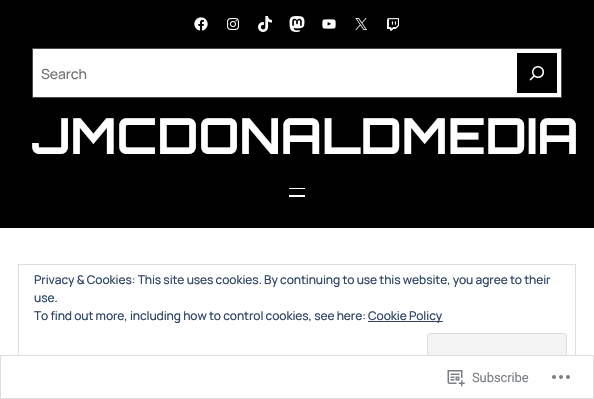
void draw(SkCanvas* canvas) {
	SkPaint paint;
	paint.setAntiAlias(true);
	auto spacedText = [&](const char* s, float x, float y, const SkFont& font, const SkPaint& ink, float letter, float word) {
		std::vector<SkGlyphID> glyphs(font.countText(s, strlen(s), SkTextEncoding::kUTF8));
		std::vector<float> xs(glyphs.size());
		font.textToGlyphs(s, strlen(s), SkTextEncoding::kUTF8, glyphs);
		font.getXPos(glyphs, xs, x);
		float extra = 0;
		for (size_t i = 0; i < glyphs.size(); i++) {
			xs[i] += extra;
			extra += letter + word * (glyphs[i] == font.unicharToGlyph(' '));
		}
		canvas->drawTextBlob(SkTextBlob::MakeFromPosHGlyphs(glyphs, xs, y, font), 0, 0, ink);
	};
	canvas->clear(0xffffffff);
	paint.setColor(0xff000000);
	canvas->drawRect(SkRect::MakeXYWH(0, 0, 594, 228), paint);
	canvas->drawImageRect(SkImages::DeferredFromEncodedData(SkData::MakeFromFileName("img1.png")), SkRect::MakeXYWH(194, 17, 14, 14), SkSamplingOptions());
	canvas->drawImageRect(SkImages::DeferredFromEncodedData(SkData::MakeFromFileName("img2.png")), SkRect::MakeXYWH(227, 18, 12, 12), SkSamplingOptions());
	canvas->drawImageRect(SkImages::DeferredFromEncodedData(SkData::MakeFromFileName("img3.png")), SkRect::MakeXYWH(258, 16, 14, 16), SkSamplingOptions());
	canvas->drawImageRect(SkImages::DeferredFromEncodedData(SkData::MakeFromFileName("img4.png")), SkRect::MakeXYWH(289, 16, 16, 16), SkSamplingOptions());
	canvas->drawImageRect(SkImages::DeferredFromEncodedData(SkData::MakeFromFileName("img5.png")), SkRect::MakeXYWH(322, 19, 14, 10), SkSamplingOptions());
	canvas->drawImageRect(SkImages::DeferredFromEncodedData(SkData::MakeFromFileName("img6.png")), SkRect::MakeXYWH(355, 18, 12, 12), SkSamplingOptions());
	canvas->drawImageRect(SkImages::DeferredFromEncodedData(SkData::MakeFromFileName("img7.png")), SkRect::MakeXYWH(387, 18, 12, 13), SkSamplingOptions());
	paint.setColor(0xffffffff);
	canvas->drawRect(SkRect::MakeXYWH(32.5, 48.5, 529, 49), paint);
	paint.setStroke(true);
	paint.setStrokeWidth(1);
	paint.setColor(0xff4a4a4a);
	canvas->drawRect(SkRect::MakeXYWH(32.5, 48.5, 529, 49), paint);
	SkFont f1(fontMgr->matchFamilyStyle("Manrope", SkFontStyle(500, SkFontStyle::kNormal_Width, SkFontStyle::kUpright_Slant)), 14);
	f1.setSubpixel(true);
	paint.setStroke(false);
	paint.setColor(0xff757575);
	spacedText("Search", 41, 79, f1, paint, -0.1, 0);
	paint.setColor(0xff000000);
	canvas->drawRect(SkRect::MakeXYWH(517, 53, 40, 40), paint);
	canvas->drawImageRect(SkImages::DeferredFromEncodedData(SkData::MakeFromFileName("img8.png")), SkRect::MakeXYWH(529, 66, 16, 15), SkSamplingOptions());
	SkFont f2(fontMgr->matchFamilyStyle("Orbitron", SkFontStyle::Bold()), 49.6);
	f2.setSubpixel(true);
	paint.setColor(0xffffffff);
	spacedText("JMCDONALDMEDIA", 32, 154, f2, paint, -0.1, 0);
	canvas->drawRect(SkRect::MakeXYWH(289, 188, 16, 1), paint);
	canvas->drawRect(SkRect::MakeXYWH(289, 195, 16, 2), paint);
	paint.setStroke(true);
	paint.setColor(0xffdedede);
	canvas->drawRect(SkRect::MakeXYWH(18.5, 264.5, 557, 116), paint);
	SkFont f3(fontMgr->matchFamilyStyle("Manrope", SkFontStyle(500, SkFontStyle::kNormal_Width, SkFontStyle::kUpright_Slant)), 12);
	f3.setSubpixel(true);
	paint.setStroke(false);
	paint.setColor(0xff2e4467);
	spacedText("Privacy & Cookies: This site uses cookies. By continuing to use this website, you agree to their", 34, 284, f3, paint, -0.1, 0);
	spacedText("use.", 34, 302, f3, paint, -0.1, 0);
	spacedText("To find out more, including how to control cookies, see here:", 34, 320, f3, paint, -0.1, 0);
	canvas->drawRect(SkRect::MakeXYWH(368, 321, 75, 1), paint);
	spacedText("Cookie Policy", 368, 320, f3, paint, -0.1, 0);
	paint.setColor(0xfff3f3f3);
	canvas->drawRoundRect(SkRect::MakeXYWH(427.5, 333.5, 139, 38), 2.5, 2.5, paint);
	paint.setStroke(true);
	paint.setColor(0xffdedede);
	canvas->drawRoundRect(SkRect::MakeXYWH(427.5, 333.5, 139, 38), 2.5, 2.5, paint);
	paint.setStroke(false);
	paint.setColor(0xfaffffff);
	canvas->drawRect(SkRect::MakeXYWH(18, 355, 558, 26), paint);
	paint.setStroke(true);
	paint.setColor(0xfadcdcde);
	canvas->drawRect(SkRect::MakeXYWH(0.5, 355.5, 593, 43), paint);
	canvas->drawImageRect(SkImages::DeferredFromEncodedData(SkData::MakeFromFileName("img9.png")), SkRect::MakeXYWH(447, 370, 18, 17), SkSamplingOptions());
	SkFont f4(fontMgr->matchFamilyStyle("Roboto", SkFontStyle::Normal()), 13);
	f4.setSubpixel(true);
	paint.setStroke(false);
	paint.setColor(0xff7b7f84);
	spacedText("Subscribe", 472, 382, f4, paint, -0.1, 0);
	canvas->drawImageRect(SkImages::DeferredFromEncodedData(SkData::MakeFromFileName("img10.png")), SkRect::MakeXYWH(552, 375, 18, 4), SkSamplingOptions());
}
